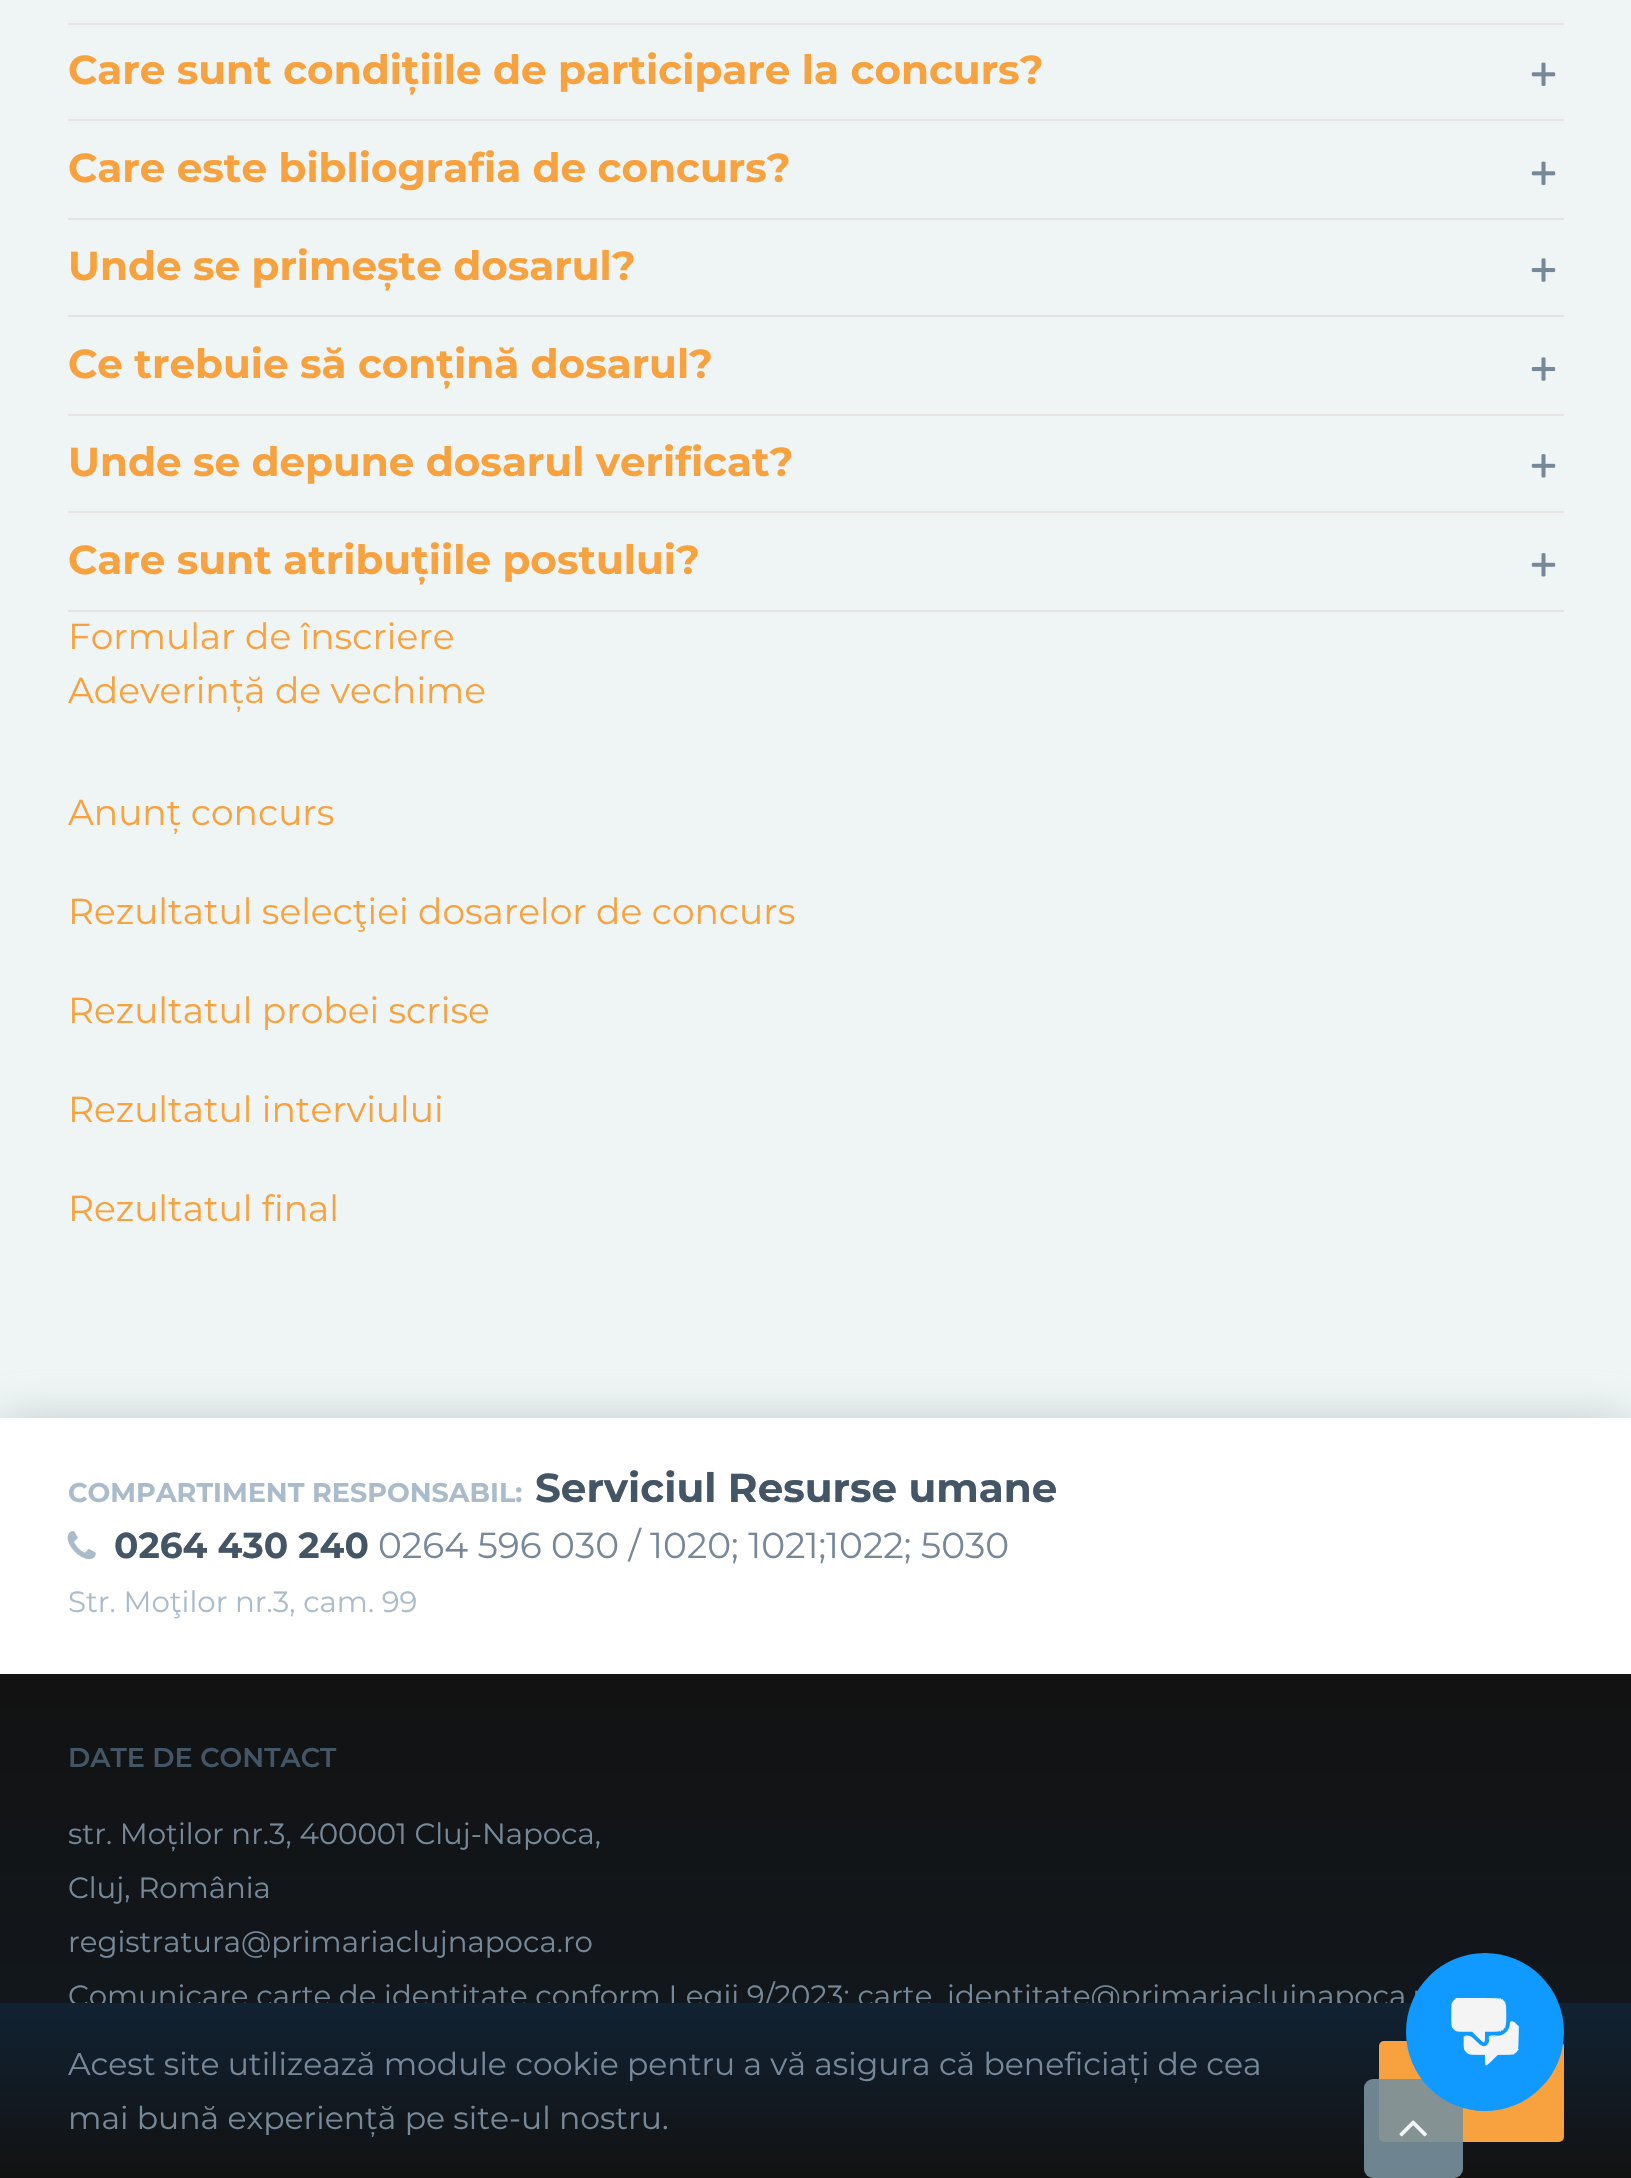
void draw(SkCanvas* canvas) {
	SkPaint paint;
	paint.setAntiAlias(true);
	canvas->clear(0xffeff5f5);
	paint.setColor(0xffe5e4e3);
	canvas->drawRect(SkRect::MakeXYWH(68, 23, 1496, 2), paint);
	canvas->drawRect(SkRect::MakeXYWH(68, 119, 1496, 2), paint);
	SkFont f1(fontMgr->matchFamilyStyle("Montserrat", SkFontStyle(100, SkFontStyle::kNormal_Width, SkFontStyle::kUpright_Slant)), 40.5);
	f1.setSubpixel(true);
	paint.setColor(0xfff8a23f);
	canvas->drawString("Care sunt condițiile de participare la concurs?", 68, 84, f1, paint);
	canvas->drawImageRect(SkImages::DeferredFromEncodedData(SkData::MakeFromFileName("img1.png")), SkRect::MakeXYWH(1531, 62, 25, 24), SkSamplingOptions());
	paint.setColor(0xffe5e4e3);
	canvas->drawRect(SkRect::MakeXYWH(68, 218, 1496, 2), paint);
	paint.setColor(0xfff8a23f);
	canvas->drawString("Care este bibliografia de concurs?", 68, 182, f1, paint);
	canvas->drawImageRect(SkImages::DeferredFromEncodedData(SkData::MakeFromFileName("img1.png")), SkRect::MakeXYWH(1531, 161, 25, 24), SkSamplingOptions());
	paint.setColor(0xffe5e4e3);
	canvas->drawRect(SkRect::MakeXYWH(68, 315, 1496, 2), paint);
	paint.setColor(0xfff8a23f);
	canvas->drawString("Unde se primește dosarul?", 68, 280, f1, paint);
	canvas->drawImageRect(SkImages::DeferredFromEncodedData(SkData::MakeFromFileName("img2.png")), SkRect::MakeXYWH(1531, 258, 25, 24), SkSamplingOptions());
	paint.setColor(0xffe5e4e3);
	canvas->drawRect(SkRect::MakeXYWH(68, 414, 1496, 2), paint);
	paint.setColor(0xfff8a23f);
	canvas->drawString("Ce trebuie să conțină dosarul?", 68, 378, f1, paint);
	canvas->drawImageRect(SkImages::DeferredFromEncodedData(SkData::MakeFromFileName("img2.png")), SkRect::MakeXYWH(1531, 357, 25, 24), SkSamplingOptions());
	paint.setColor(0xffe5e4e3);
	canvas->drawRect(SkRect::MakeXYWH(68, 511, 1496, 2), paint);
	paint.setColor(0xfff8a23f);
	canvas->drawString("Unde se depune dosarul verificat?", 68, 476, f1, paint);
	canvas->drawImageRect(SkImages::DeferredFromEncodedData(SkData::MakeFromFileName("img3.png")), SkRect::MakeXYWH(1531, 454, 25, 24), SkSamplingOptions());
	paint.setColor(0xffe5e4e3);
	canvas->drawRect(SkRect::MakeXYWH(68, 610, 1496, 2), paint);
	paint.setColor(0xfff8a23f);
	canvas->drawString("Care sunt atribuțiile postului?", 68, 574, f1, paint);
	canvas->drawImageRect(SkImages::DeferredFromEncodedData(SkData::MakeFromFileName("img3.png")), SkRect::MakeXYWH(1531, 553, 25, 24), SkSamplingOptions());
	SkFont f2(fontMgr->matchFamilyStyle("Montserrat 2", SkFontStyle(100, SkFontStyle::kNormal_Width, SkFontStyle::kUpright_Slant)), 36);
	f2.setSubpixel(true);
	canvas->drawString("Formular de înscriere", 68, 649, f2, paint);
	canvas->drawString("Adeverință de vechime", 68, 703, f2, paint);
	canvas->drawString("Anunț concurs", 68, 825, f2, paint);
	canvas->drawString("Rezultatul selecţiei dosarelor de concurs", 68, 924, f2, paint);
	canvas->drawString("Rezultatul probei scrise", 68, 1023, f2, paint);
	canvas->drawString("Rezultatul interviului", 68, 1122, f2, paint);
	canvas->drawString("Rezultatul final", 68, 1221, f2, paint);
	paint.setColor(0x80929da2);
	paint.setMaskFilter(SkMaskFilter::MakeBlur(kNormal_SkBlurStyle, 22.5));
	canvas->drawRect(SkRect::MakeXYWH(0, 1420, 1631, 256), paint);
	paint.setMaskFilter(nullptr);
	paint.setColor(0xffffffff);
	canvas->drawRect(SkRect::MakeXYWH(0, 1418, 1631, 256), paint);
	SkFont f3(fontMgr->matchFamilyStyle("Montserrat", SkFontStyle(100, SkFontStyle::kNormal_Width, SkFontStyle::kUpright_Slant)), 27);
	f3.setSubpixel(true);
	paint.setColor(0xffaabbcc);
	canvas->drawString("COMPARTIMENT RESPONSABIL:", 68, 1502, f3, paint);
	paint.setColor(0xff445566);
	canvas->drawString("Serviciul Resurse umane", 535, 1502, f1, paint);
	canvas->drawImageRect(SkImages::DeferredFromEncodedData(SkData::MakeFromFileName("img4.png")), SkRect::MakeXYWH(67, 1531, 29, 29), SkSamplingOptions());
	SkFont f4(fontMgr->matchFamilyStyle("Montserrat", SkFontStyle(100, SkFontStyle::kNormal_Width, SkFontStyle::kUpright_Slant)), 36);
	f4.setSubpixel(true);
	canvas->drawString("0264 430 240", 114, 1558, f4, paint);
	paint.setColor(0xff778899);
	canvas->drawString("0264 596 030 / 1020; 1021;1022; 5030", 378, 1558, f2, paint);
	SkFont f5(fontMgr->matchFamilyStyle("Montserrat 2", SkFontStyle(100, SkFontStyle::kNormal_Width, SkFontStyle::kUpright_Slant)), 29.25);
	f5.setSubpixel(true);
	paint.setColor(0xffaabbcc);
	canvas->drawString("Str. Moţilor nr.3, cam. 99", 68, 1612, f5, paint);
	{
		const SkColor colors[] = {0xff121212, 0xff112233};
		const float stops[] = {0, 1};
		const SkPoint ends[] = {{816, 1674}, {816, 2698}};
		paint.setShader(SkGradientShader::MakeLinear(ends, colors, stops, 2, SkTileMode::kClamp));
		paint.setAlpha(255);
	}
	canvas->drawRect(SkRect::MakeXYWH(0, 1674, 1631, 329), paint);
	SkFont f6(fontMgr->matchFamilyStyle("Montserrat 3", SkFontStyle(100, SkFontStyle::kNormal_Width, SkFontStyle::kUpright_Slant)), 27);
	f6.setSubpixel(true);
	paint.setShader(nullptr);
	paint.setColor(0xff445566);
	canvas->drawString("DATE DE CONTACT", 68, 1767, f6, paint);
	paint.setColor(0xff778899);
	canvas->drawString("str. Moților nr.3, 400001 Cluj-Napoca,", 68, 1844, f5, paint);
	canvas->drawString("Cluj, România", 68, 1898, f5, paint);
	canvas->drawString("registratura@primariaclujnapoca.ro", 68, 1952, f5, paint);
	canvas->drawString("Comunicare carte de identitate conform Legii 9/2023: carte_identitate@primariaclujnapoca.r", 68, 2006, f5, paint);
	{
		const SkColor colors[] = {0xff121212, 0xff112233};
		const float stops[] = {0, 1};
		const SkPoint ends[] = {{816, 2178}, {816, 2003}};
		paint.setShader(SkGradientShader::MakeLinear(ends, colors, stops, 2, SkTileMode::kClamp));
		paint.setAlpha(255);
	}
	canvas->drawRect(SkRect::MakeXYWH(0, 2003, 1631, 175), paint);
	SkFont f7(fontMgr->matchFamilyStyle("Montserrat 2", SkFontStyle(100, SkFontStyle::kNormal_Width, SkFontStyle::kUpright_Slant)), 31.5);
	f7.setSubpixel(true);
	paint.setShader(nullptr);
	paint.setColor(0xff778899);
	canvas->drawString("Acest site utilizează module cookie pentru a vă asigura că beneficiați de cea", 68, 2075, f7, paint);
	canvas->drawString("mai bună experiență pe site-ul nostru.", 68, 2129, f7, paint);
	paint.setColor(0xfff8a23f);
	canvas->drawRoundRect(SkRect::MakeXYWH(1379, 2041, 185, 101), 5, 5, paint);
	paint.setColor(0xe678909c);
	canvas->drawRoundRect(SkRect::MakeXYWH(1364, 2079, 99, 99), 9, 9, paint);
	paint.setColor(0xff1099ff);
	canvas->drawCircle(1485, 2032, 79, paint);
	canvas->drawImageRect(SkImages::DeferredFromEncodedData(SkData::MakeFromFileName("img5.png")), SkRect::MakeXYWH(1451, 1998, 68, 68), SkSamplingOptions());
	canvas->drawImageRect(SkImages::DeferredFromEncodedData(SkData::MakeFromFileName("img6.png")), SkRect::MakeXYWH(1399, 2120, 28, 17), SkSamplingOptions());
}
